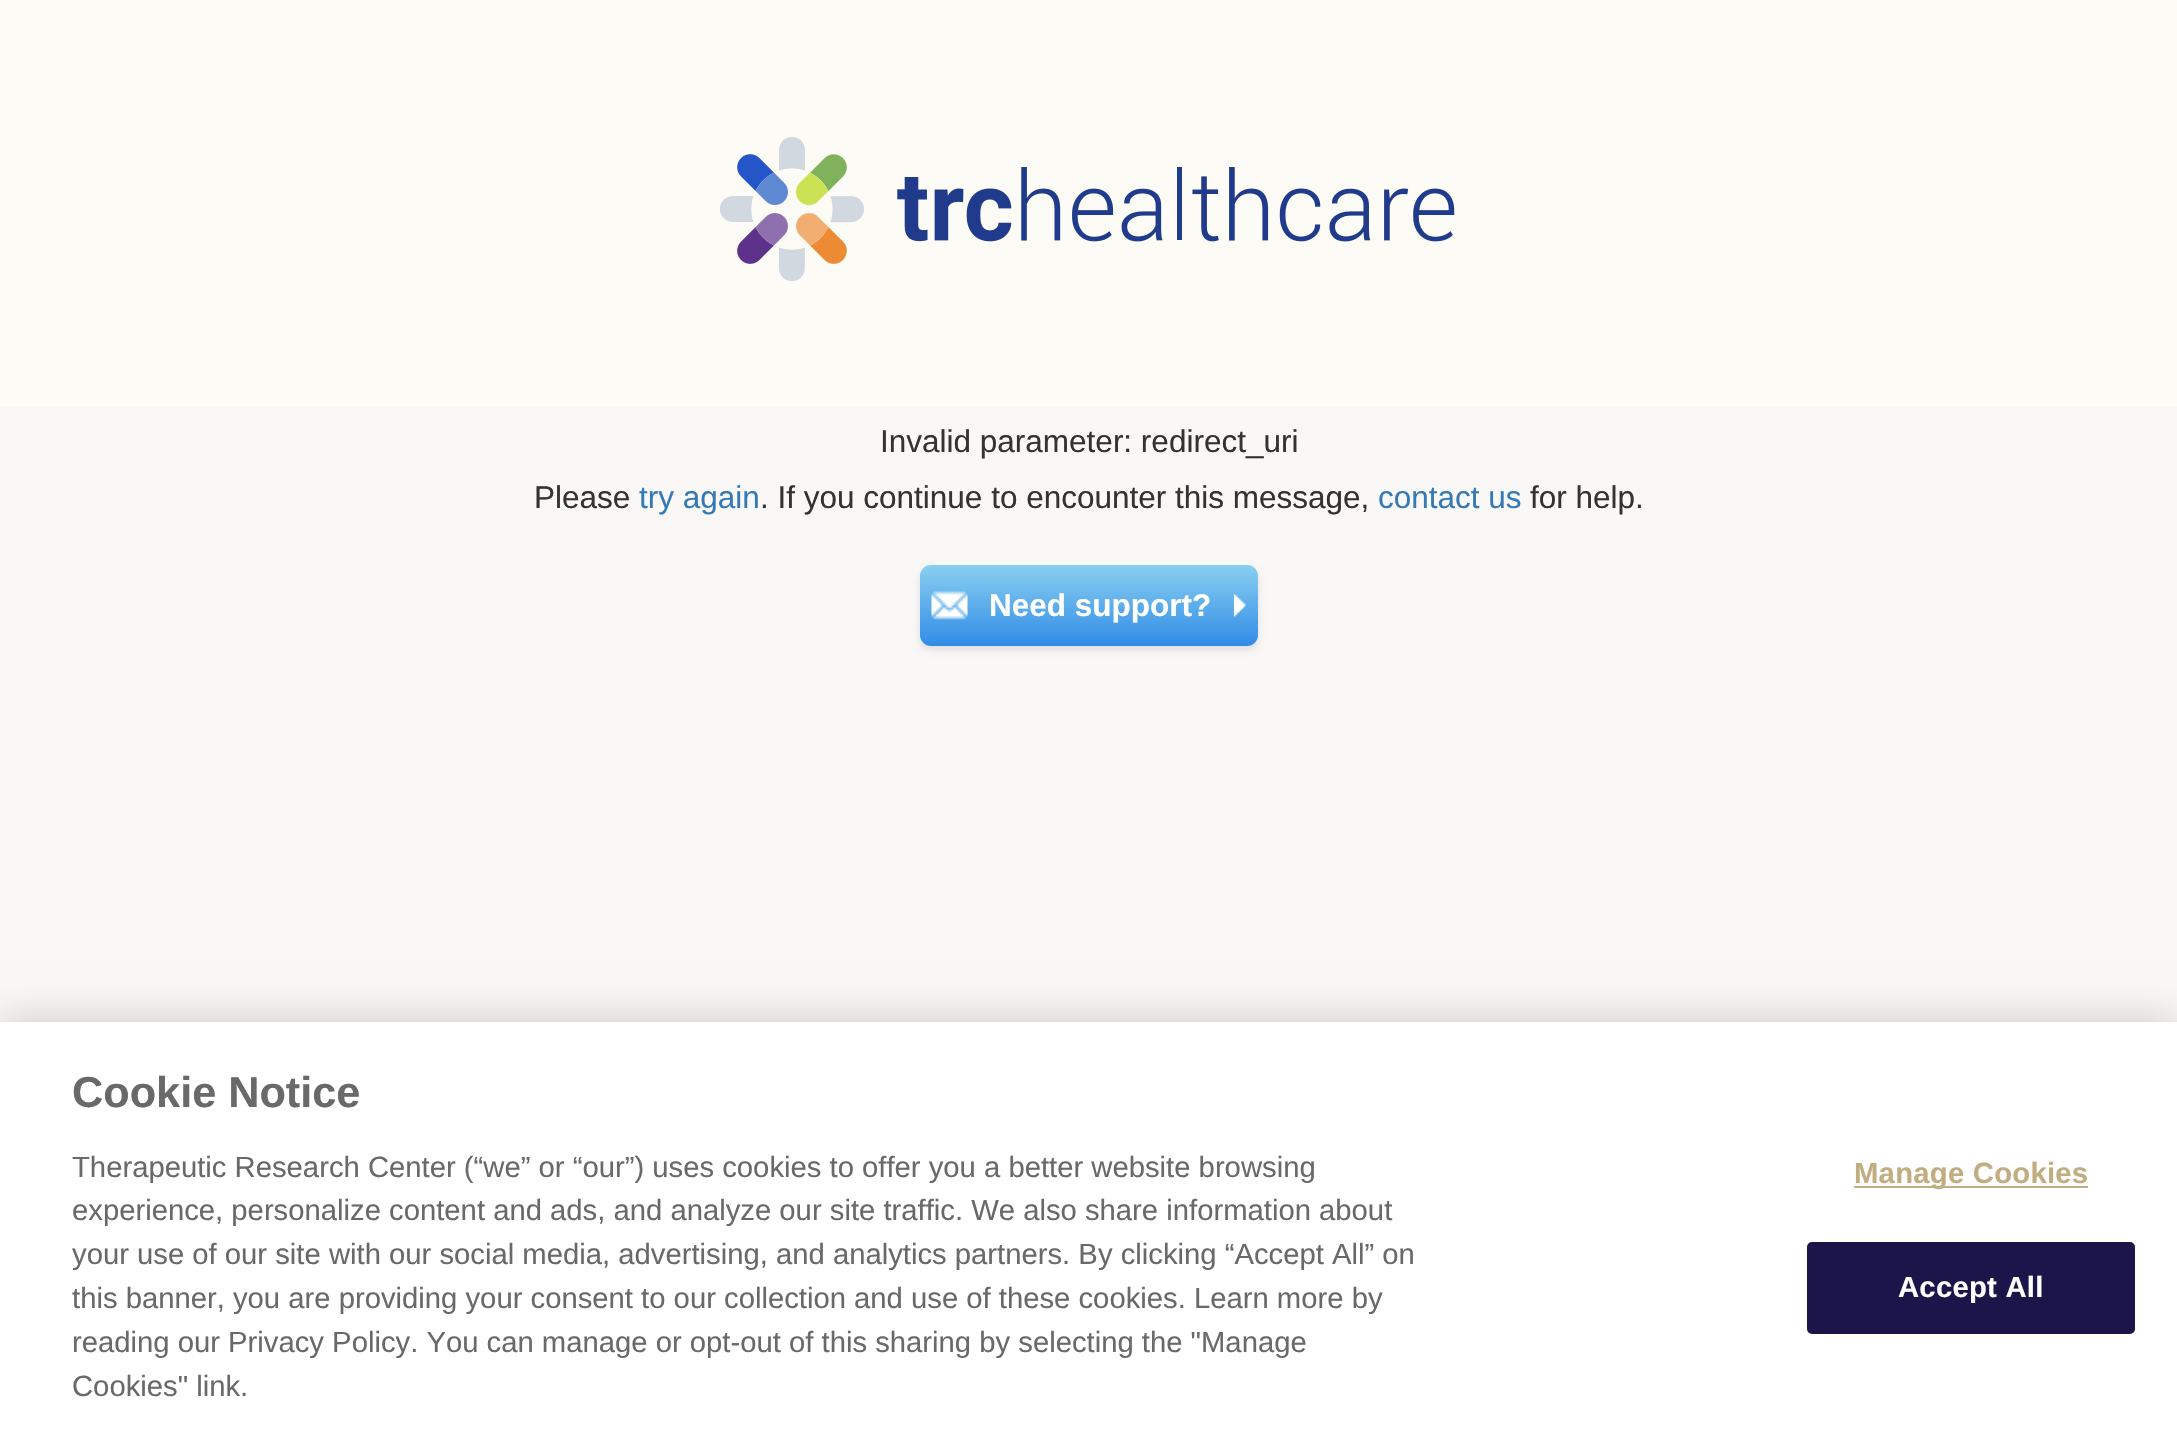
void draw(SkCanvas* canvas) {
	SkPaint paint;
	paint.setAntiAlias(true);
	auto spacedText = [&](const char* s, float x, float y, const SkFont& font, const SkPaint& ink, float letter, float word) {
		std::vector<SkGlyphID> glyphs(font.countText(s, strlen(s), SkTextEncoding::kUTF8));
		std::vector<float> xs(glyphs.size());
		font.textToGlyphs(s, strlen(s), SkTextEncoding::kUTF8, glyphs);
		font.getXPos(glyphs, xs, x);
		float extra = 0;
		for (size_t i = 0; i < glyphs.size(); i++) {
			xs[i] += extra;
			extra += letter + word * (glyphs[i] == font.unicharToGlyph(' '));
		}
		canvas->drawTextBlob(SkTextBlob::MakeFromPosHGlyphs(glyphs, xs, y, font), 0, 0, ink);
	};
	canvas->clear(0xfffaf8f7);
	paint.setColor(0xfffcfbf5);
	canvas->drawRect(SkRect::MakeXYWH(0, 0, 2177, 407), paint);
	canvas->drawImageRect(SkImages::DeferredFromEncodedData(SkData::MakeFromFileName("img1.png")), SkRect::MakeXYWH(719, 137, 736, 145), SkSamplingOptions());
	SkFont f1(fontMgr->matchFamilyStyle("Liberation Sans", SkFontStyle::Normal()), 31.5);
	f1.setSubpixel(true);
	paint.setColor(0xff333333);
	canvas->drawString("Invalid parameter: redirect_uri", 880, 452, f1, paint);
	canvas->drawString("Please", 534, 508, f1, paint);
	paint.setColor(0xff337ab7);
	canvas->drawString("try again", 639, 508, f1, paint);
	paint.setColor(0xff333333);
	canvas->drawString(". If you continue to encounter this message,", 760, 508, f1, paint);
	paint.setColor(0xff337ab7);
	canvas->drawString("contact us", 1378, 508, f1, paint);
	paint.setColor(0xff333333);
	canvas->drawString("for help.", 1530, 508, f1, paint);
	paint.setColor(0x1a030303);
	paint.setMaskFilter(SkMaskFilter::MakeBlur(kNormal_SkBlurStyle, 3.5));
	canvas->drawRoundRect(SkRect::MakeXYWH(920, 569, 338, 81), 11, 11, paint);
	paint.setMaskFilter(nullptr);
	{
		const SkColor colors[] = {0xff89cff0, 0xff318ce7};
		const float stops[] = {0, 1};
		const SkPoint ends[] = {{1089, 565}, {1089, 646}};
		paint.setShader(SkGradientShader::MakeLinear(ends, colors, stops, 2, SkTileMode::kClamp));
		paint.setAlpha(255);
	}
	canvas->drawRoundRect(SkRect::MakeXYWH(920, 565, 338, 81), 11, 11, paint);
	canvas->drawImageRect(SkImages::DeferredFromEncodedData(SkData::MakeFromFileName("img2.png")), SkRect::MakeXYWH(931, 591, 37, 29), SkSamplingOptions());
	SkFont f2(fontMgr->matchFamilyStyle("Liberation Sans", SkFontStyle::Bold()), 31.5);
	f2.setSubpixel(true);
	paint.setShader(nullptr);
	paint.setColor(0xffffffff);
	canvas->drawString("Need support?", 989, 616, f2, paint);
	canvas->drawImageRect(SkImages::DeferredFromEncodedData(SkData::MakeFromFileName("img3.png")), SkRect::MakeXYWH(1233, 594, 13, 23), SkSamplingOptions());
	paint.setColor(0x33000000);
	paint.setMaskFilter(SkMaskFilter::MakeBlur(kNormal_SkBlurStyle, 20));
	canvas->drawRect(SkRect::MakeXYWH(0, 1022, 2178, 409), paint);
	paint.setMaskFilter(nullptr);
	paint.setColor(0xffffffff);
	canvas->drawRect(SkRect::MakeXYWH(0, 1022, 2177, 408), paint);
	SkFont f3(fontMgr->matchFamilyStyle("Liberation Sans", SkFontStyle::Bold()), 43.25);
	f3.setSubpixel(true);
	paint.setColor(0xff696969);
	canvas->drawString("Cookie Notice", 72, 1107, f3, paint);
	SkFont f4(fontMgr->matchFamilyStyle("Liberation Sans", SkFontStyle::Normal()), 29.25);
	f4.setSubpixel(true);
	canvas->drawString("Therapeutic Research Center (“we” or “our”) uses cookies to offer you a better website browsing", 72, 1177, f4, paint);
	canvas->drawString("experience, personalize content and ads, and analyze our site traffic. We also share information about", 72, 1220, f4, paint);
	canvas->drawString("your use of our site with our social media, advertising, and analytics partners. By clicking “Accept All” on", 72, 1264, f4, paint);
	canvas->drawString("this banner, you are providing your consent to our collection and use of these cookies. Learn more by", 72, 1308, f4, paint);
	canvas->drawString("reading our Privacy Policy. You can manage or opt-out of this sharing by selecting the \"Manage", 72, 1352, f4, paint);
	canvas->drawString("Cookies\" link.", 72, 1396, f4, paint);
	paint.setColor(0xffc1ad80);
	canvas->drawRect(SkRect::MakeXYWH(1854, 1186, 234, 2), paint);
	SkFont f5(fontMgr->matchFamilyStyle("Liberation Sans", SkFontStyle::Bold()), 29.25);
	f5.setSubpixel(true);
	spacedText("Manage Cookies", 1854, 1183, f5, paint, 0.25, 0);
	paint.setColor(0xff1b1549);
	canvas->drawRoundRect(SkRect::MakeXYWH(1808, 1243, 326, 90), 4, 4, paint);
	paint.setStroke(true);
	paint.setStrokeWidth(2);
	canvas->drawRoundRect(SkRect::MakeXYWH(1808, 1243, 326, 90), 4, 4, paint);
	paint.setStroke(false);
	paint.setColor(0xffffffff);
	spacedText("Accept All", 1898, 1297, f5, paint, 0.25, 0);
}
